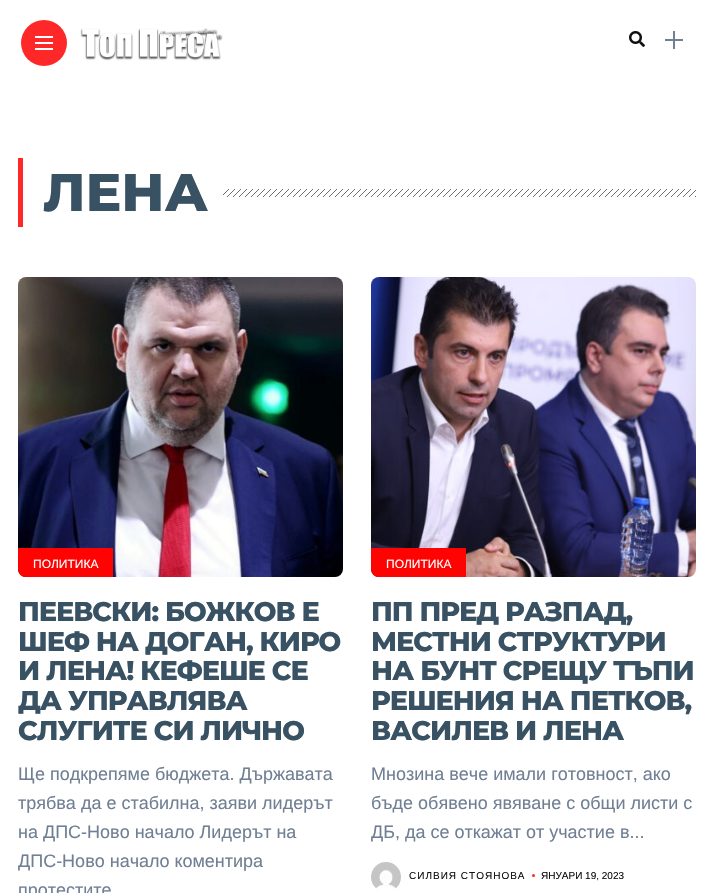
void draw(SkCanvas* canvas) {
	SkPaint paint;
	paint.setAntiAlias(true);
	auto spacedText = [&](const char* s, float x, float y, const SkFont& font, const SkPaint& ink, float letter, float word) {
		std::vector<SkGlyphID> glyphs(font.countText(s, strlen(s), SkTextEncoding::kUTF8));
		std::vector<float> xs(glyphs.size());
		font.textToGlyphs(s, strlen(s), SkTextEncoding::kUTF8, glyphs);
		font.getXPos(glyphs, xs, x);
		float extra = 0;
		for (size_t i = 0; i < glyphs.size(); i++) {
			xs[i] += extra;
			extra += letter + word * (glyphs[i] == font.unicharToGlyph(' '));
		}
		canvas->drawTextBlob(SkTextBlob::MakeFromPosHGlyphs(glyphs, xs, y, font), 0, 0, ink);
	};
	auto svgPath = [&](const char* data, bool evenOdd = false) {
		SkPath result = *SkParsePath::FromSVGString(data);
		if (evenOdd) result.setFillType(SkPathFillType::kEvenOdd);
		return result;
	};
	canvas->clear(0xffffffff);
	paint.setColor(0xffff2828);
	canvas->drawCircle(44, 43, 23, paint);
	paint.setColor(0xffffffff);
	canvas->drawRect(SkRect::MakeXYWH(35, 36, 18, 2), paint);
	canvas->drawRect(SkRect::MakeXYWH(35, 42, 18, 2), paint);
	canvas->drawRect(SkRect::MakeXYWH(35, 48, 18, 2), paint);
	canvas->drawImageRect(SkImages::DeferredFromEncodedData(SkData::MakeFromFileName("img1.png")), SkRect::MakeXYWH(80, 28, 143, 33), SkSamplingOptions());
	canvas->drawImageRect(SkImages::DeferredFromEncodedData(SkData::MakeFromFileName("img2.png")), SkRect::MakeXYWH(629, 31, 16, 16), SkSamplingOptions());
	paint.setColor(0xff707f93);
	canvas->drawRect(SkRect::MakeXYWH(665, 39, 18, 2), paint);
	canvas->drawRect(SkRect::MakeXYWH(673, 31, 2, 18), paint);
	paint.setColor(0xffff2828);
	canvas->drawRect(SkRect::MakeXYWH(18, 158, 5, 69), paint);
	SkFont f1(fontMgr->matchFamilyStyle("Montserrat", SkFontStyle(800, SkFontStyle::kNormal_Width, SkFontStyle::kUpright_Slant)), 53);
	f1.setSubpixel(true);
	paint.setColor(0xff385163);
	canvas->drawString("ЛЕНА", 43, 211, f1, paint);
	canvas->drawImageRect(SkImages::DeferredFromEncodedData(SkData::MakeFromFileName("img3.png")), SkRect::MakeXYWH(223, 189, 473, 8), SkSamplingOptions());
	canvas->drawImageRect(SkImages::DeferredFromEncodedData(SkData::MakeFromFileName("img4.png")), SkRect::MakeXYWH(18, 277, 325, 300), SkSamplingOptions());
	paint.setColor(0xffff0202);
	canvas->drawPath(svgPath("M18 548H113V577H26C21.5 577 18 573.5 18 569Z"), paint);
	SkFont f2(fontMgr->matchFamilyStyle("Liberation Sans", SkFontStyle::Normal()), 12);
	f2.setSubpixel(true);
	paint.setColor(0xffffffff);
	canvas->drawString("ПОЛИТИКА", 33, 568, f2, paint);
	SkFont f3(fontMgr->matchFamilyStyle("Montserrat", SkFontStyle(800, SkFontStyle::kNormal_Width, SkFontStyle::kUpright_Slant)), 27);
	f3.setSubpixel(true);
	paint.setColor(0xff385163);
	spacedText("ПЕЕВСКИ: БОЖКОВ Е", 18, 621, f3, paint, -1, 0);
	spacedText("ШЕФ НА ДОГАН, КИРО", 18, 651, f3, paint, -1, 0);
	spacedText("И ЛЕНА! КЕФЕШЕ СЕ", 18, 680, f3, paint, -1, 0);
	spacedText("ДА УПРАВЛЯВА", 18, 710, f3, paint, -1, 0);
	spacedText("СЛУГИТЕ СИ ЛИЧНО", 18, 740, f3, paint, -1, 0);
	SkFont f4(fontMgr->matchFamilyStyle("Liberation Sans", SkFontStyle::Normal()), 18);
	f4.setSubpixel(true);
	paint.setColor(0xff707f93);
	canvas->drawString("Ще подкрепяме бюджета. Държавата", 18, 780, f4, paint);
	canvas->drawString("трябва да е стабилна, заяви лидерът", 18, 809, f4, paint);
	canvas->drawString("на ДПС-Ново начало Лидерът на", 18, 838, f4, paint);
	canvas->drawString("ДПС-Ново начало коментира", 18, 867, f4, paint);
	canvas->drawString("протестите", 18, 896, f4, paint);
	canvas->drawImageRect(SkImages::DeferredFromEncodedData(SkData::MakeFromFileName("img5.png")), SkRect::MakeXYWH(371, 277, 325, 300), SkSamplingOptions());
	paint.setColor(0xffff0202);
	canvas->drawPath(svgPath("M371 548H466V577H379C374.5 577 371 573.5 371 569Z"), paint);
	paint.setColor(0xffffffff);
	canvas->drawString("ПОЛИТИКА", 386, 568, f2, paint);
	paint.setColor(0xff385163);
	spacedText("ПП ПРЕД РАЗПАД,", 371, 621, f3, paint, -1, 0);
	spacedText("МЕСТНИ СТРУКТУРИ", 371, 651, f3, paint, -1, 0);
	spacedText("НА БУНТ СРЕЩУ ТЪПИ", 371, 680, f3, paint, -1, 0);
	spacedText("РЕШЕНИЯ НА ПЕТКОВ,", 371, 710, f3, paint, -1, 0);
	spacedText("ВАСИЛЕВ И ЛЕНА", 371, 740, f3, paint, -1, 0);
	paint.setColor(0xff707f93);
	canvas->drawString("Мнозина вече имали готовност, ако", 371, 780, f4, paint);
	canvas->drawString("бъде обявено явяване с общи листи с", 371, 809, f4, paint);
	canvas->drawString("ДБ, да се откажат от участие в...", 371, 838, f4, paint);
	canvas->drawImageRect(SkImages::DeferredFromEncodedData(SkData::MakeFromFileName("img6.png")), SkRect::MakeXYWH(371, 862, 30, 28), SkSamplingOptions());
	SkFont f5(fontMgr->matchFamilyStyle("Liberation Sans", SkFontStyle::Normal()), 10);
	f5.setSubpixel(true);
	paint.setColor(0xff111111);
	spacedText("СИЛВИЯ СТОЯНОВА", 409, 879, f5, paint, 1, 0);
	paint.setColor(0xffff2828);
	canvas->drawCircle(533.5, 875.5, 1.5, paint);
	paint.setColor(0xff111111);
	canvas->drawString("ЯНУАРИ 19, 2023", 541, 879, f5, paint);
}
